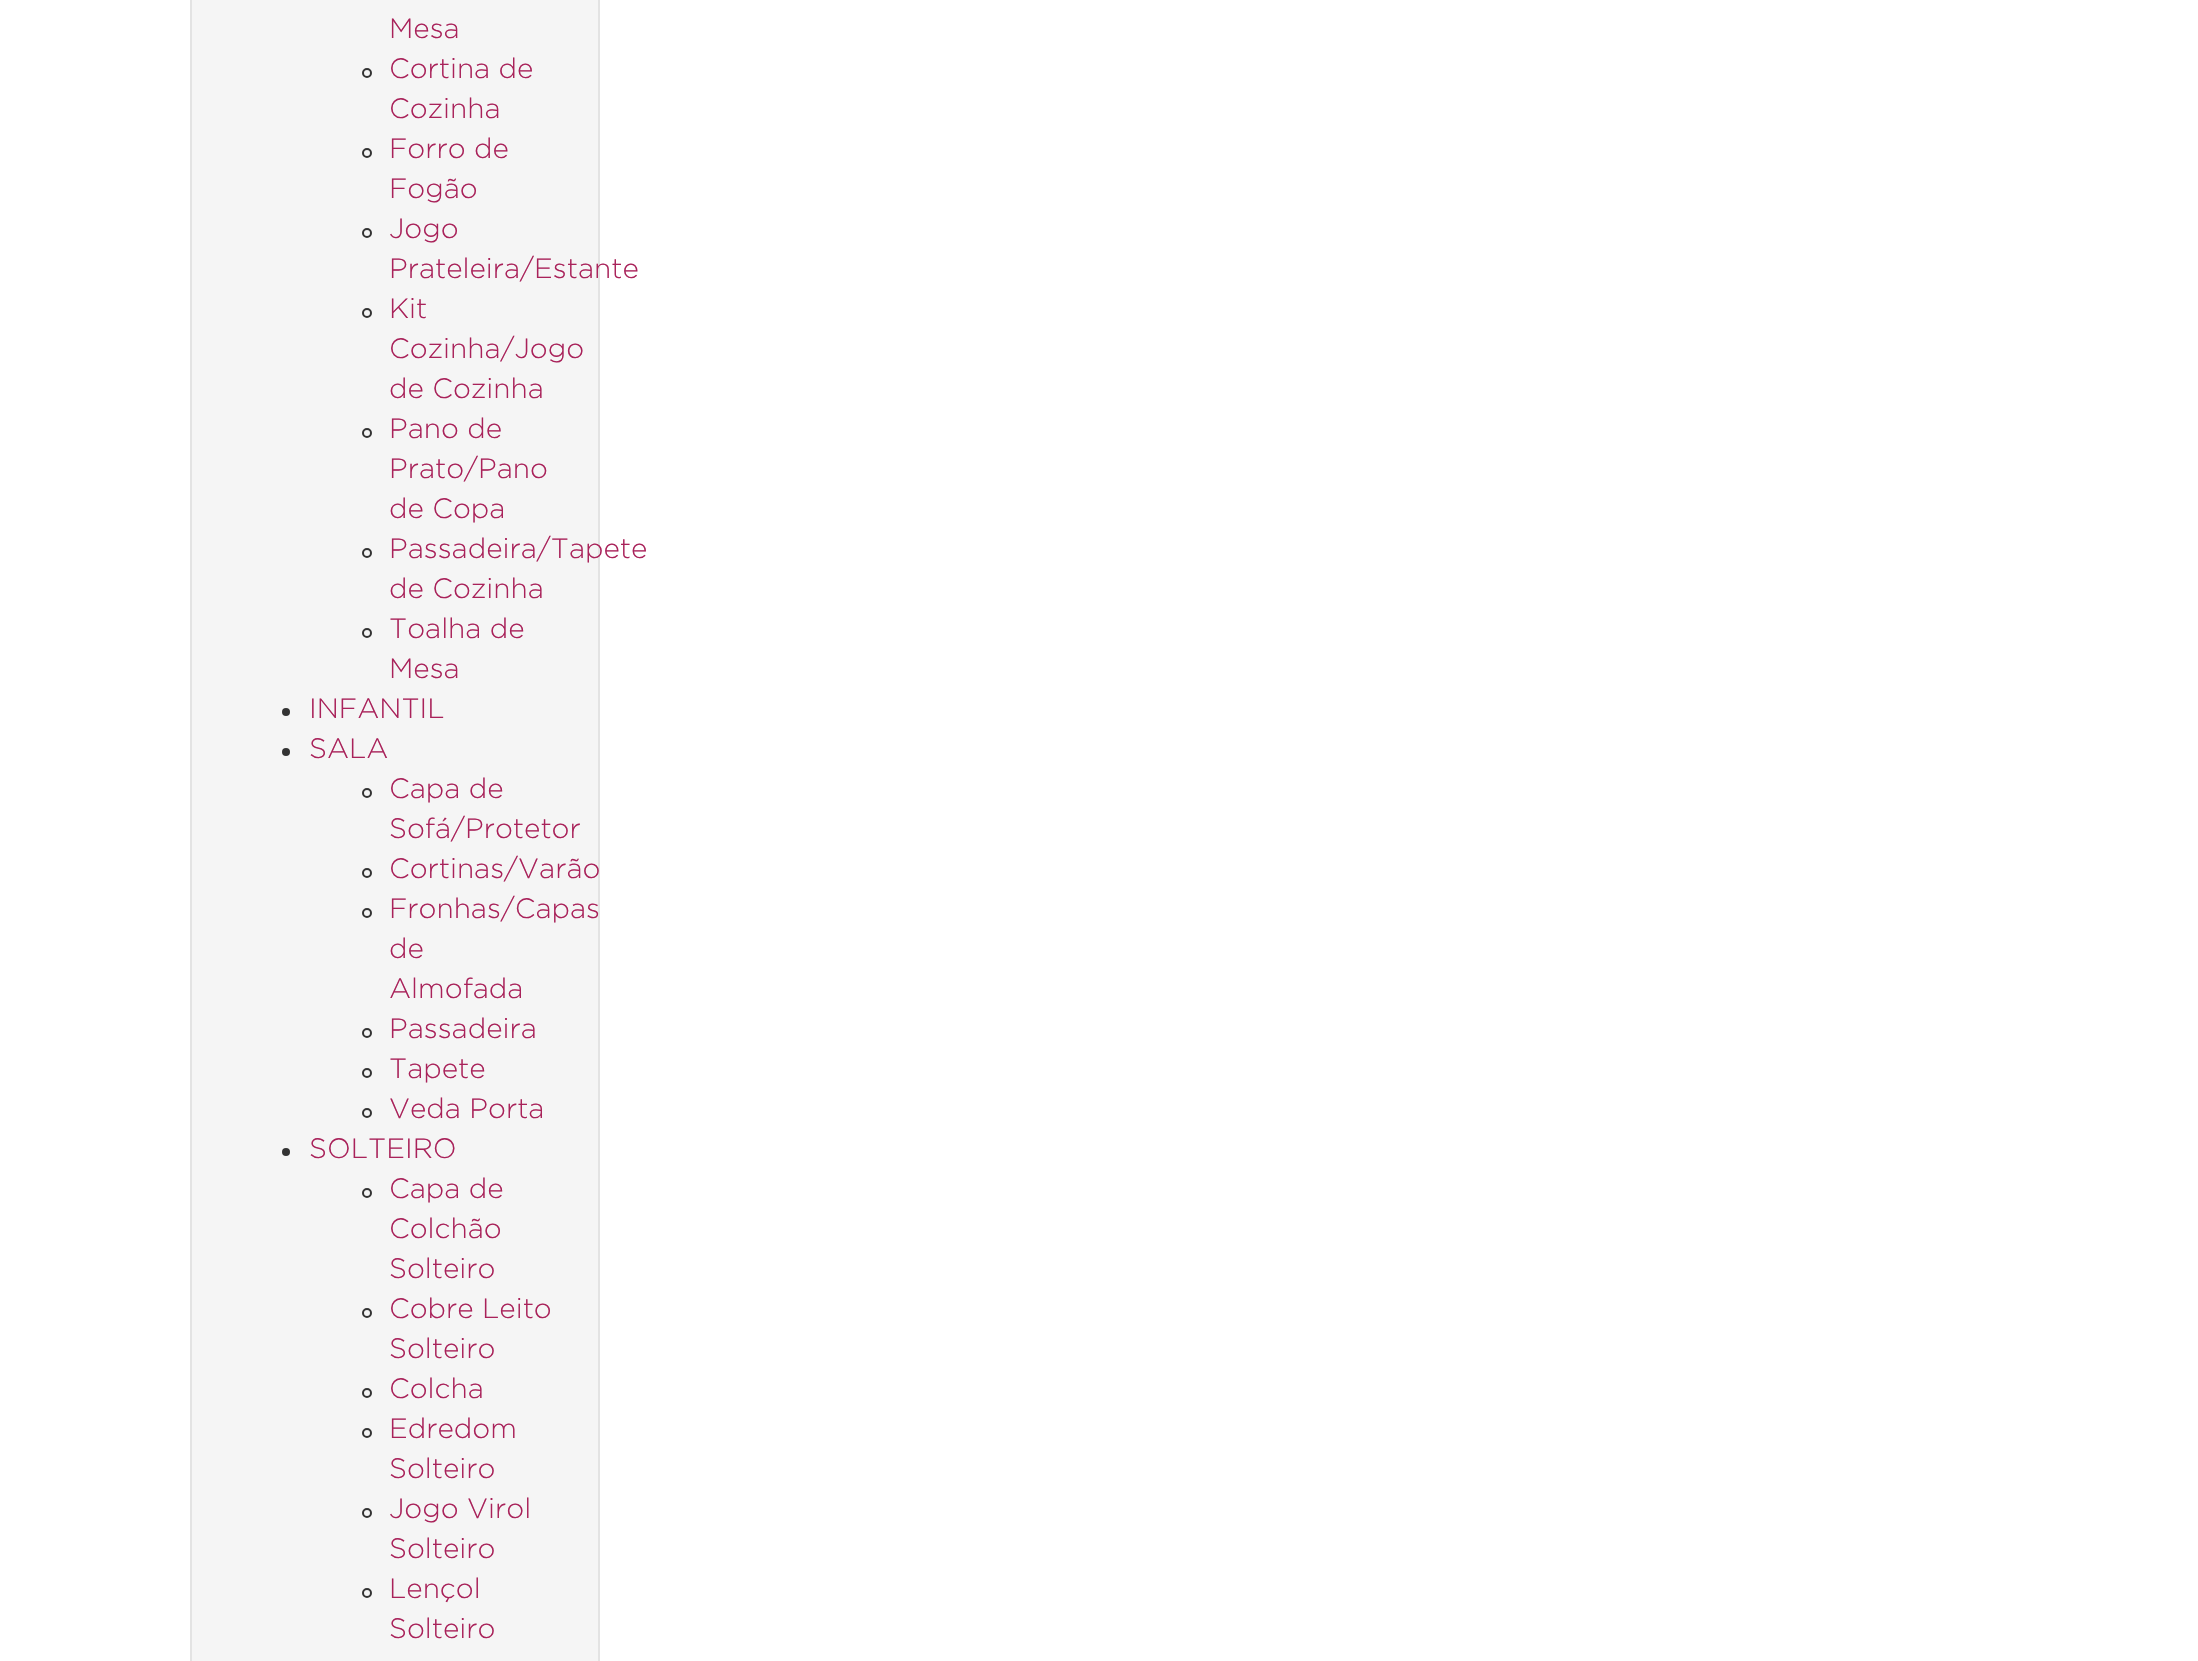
void draw(SkCanvas* canvas) {
	SkPaint paint;
	paint.setAntiAlias(true);
	canvas->clear(0xffffffff);
	paint.setColor(0xfff5f5f5);
	canvas->drawRect(SkRect::MakeXYWH(191, -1, 408, 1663), paint);
	paint.setStroke(true);
	paint.setStrokeWidth(2);
	paint.setColor(0xffe3e3e3);
	canvas->drawRect(SkRect::MakeXYWH(191, -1, 408, 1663), paint);
	SkFont f1(fontMgr->matchFamilyStyle("Gotham", SkFontStyle(300, SkFontStyle::kNormal_Width, SkFontStyle::kUpright_Slant)), 28);
	f1.setSubpixel(true);
	paint.setStroke(false);
	paint.setColor(0xffa9225a);
	canvas->drawString("Mesa", 389, 38, f1, paint);
	paint.setStroke(true);
	paint.setColor(0xff333333);
	canvas->drawCircle(367, 73, 4, paint);
	paint.setStroke(false);
	paint.setColor(0xffa9225a);
	canvas->drawString("Cortina de", 389, 78, f1, paint);
	canvas->drawString("Cozinha", 389, 118, f1, paint);
	paint.setStroke(true);
	paint.setColor(0xff333333);
	canvas->drawCircle(367, 153, 4, paint);
	paint.setStroke(false);
	paint.setColor(0xffa9225a);
	canvas->drawString("Forro de", 389, 158, f1, paint);
	canvas->drawString("Fogão", 389, 198, f1, paint);
	paint.setStroke(true);
	paint.setColor(0xff333333);
	canvas->drawCircle(367, 233, 4, paint);
	paint.setStroke(false);
	paint.setColor(0xffa9225a);
	canvas->drawString("Jogo", 389, 238, f1, paint);
	canvas->drawString("Prateleira/Estante", 389, 278, f1, paint);
	paint.setStroke(true);
	paint.setColor(0xff333333);
	canvas->drawCircle(367, 313, 4, paint);
	paint.setStroke(false);
	paint.setColor(0xffa9225a);
	canvas->drawString("Kit", 389, 318, f1, paint);
	canvas->drawString("Cozinha/Jogo", 389, 358, f1, paint);
	canvas->drawString("de Cozinha", 389, 398, f1, paint);
	paint.setStroke(true);
	paint.setColor(0xff333333);
	canvas->drawCircle(367, 433, 4, paint);
	paint.setStroke(false);
	paint.setColor(0xffa9225a);
	canvas->drawString("Pano de", 389, 438, f1, paint);
	canvas->drawString("Prato/Pano", 389, 478, f1, paint);
	canvas->drawString("de Copa", 389, 518, f1, paint);
	paint.setStroke(true);
	paint.setColor(0xff333333);
	canvas->drawCircle(367, 553, 4, paint);
	paint.setStroke(false);
	paint.setColor(0xffa9225a);
	canvas->drawString("Passadeira/Tapete", 389, 558, f1, paint);
	canvas->drawString("de Cozinha", 389, 598, f1, paint);
	paint.setStroke(true);
	paint.setColor(0xff333333);
	canvas->drawCircle(367, 633, 4, paint);
	paint.setStroke(false);
	paint.setColor(0xffa9225a);
	canvas->drawString("Toalha de", 389, 638, f1, paint);
	canvas->drawString("Mesa", 389, 678, f1, paint);
	paint.setColor(0xff333333);
	canvas->drawCircle(286, 712, 4, paint);
	paint.setColor(0xffa9225a);
	canvas->drawString("INFANTIL", 309, 718, f1, paint);
	paint.setColor(0xff333333);
	canvas->drawCircle(286, 752, 4, paint);
	paint.setColor(0xffa9225a);
	canvas->drawString("SALA", 309, 758, f1, paint);
	paint.setStroke(true);
	paint.setColor(0xff333333);
	canvas->drawCircle(367, 793, 4, paint);
	paint.setStroke(false);
	paint.setColor(0xffa9225a);
	canvas->drawString("Capa de", 389, 798, f1, paint);
	canvas->drawString("Sofá/Protetor", 389, 838, f1, paint);
	paint.setStroke(true);
	paint.setColor(0xff333333);
	canvas->drawCircle(367, 873, 4, paint);
	paint.setStroke(false);
	paint.setColor(0xffa9225a);
	canvas->drawString("Cortinas/Varão", 389, 878, f1, paint);
	paint.setStroke(true);
	paint.setColor(0xff333333);
	canvas->drawCircle(367, 913, 4, paint);
	paint.setStroke(false);
	paint.setColor(0xffa9225a);
	canvas->drawString("Fronhas/Capas", 389, 918, f1, paint);
	canvas->drawString("de", 389, 958, f1, paint);
	canvas->drawString("Almofada", 389, 998, f1, paint);
	paint.setStroke(true);
	paint.setColor(0xff333333);
	canvas->drawCircle(367, 1033, 4, paint);
	paint.setStroke(false);
	paint.setColor(0xffa9225a);
	canvas->drawString("Passadeira", 389, 1038, f1, paint);
	paint.setStroke(true);
	paint.setColor(0xff333333);
	canvas->drawCircle(367, 1073, 4, paint);
	paint.setStroke(false);
	paint.setColor(0xffa9225a);
	canvas->drawString("Tapete", 389, 1078, f1, paint);
	paint.setStroke(true);
	paint.setColor(0xff333333);
	canvas->drawCircle(367, 1113, 4, paint);
	paint.setStroke(false);
	paint.setColor(0xffa9225a);
	canvas->drawString("Veda Porta", 389, 1118, f1, paint);
	paint.setColor(0xff333333);
	canvas->drawCircle(286, 1152, 4, paint);
	paint.setColor(0xffa9225a);
	canvas->drawString("SOLTEIRO", 309, 1158, f1, paint);
	paint.setStroke(true);
	paint.setColor(0xff333333);
	canvas->drawCircle(367, 1193, 4, paint);
	paint.setStroke(false);
	paint.setColor(0xffa9225a);
	canvas->drawString("Capa de", 389, 1198, f1, paint);
	canvas->drawString("Colchão", 389, 1238, f1, paint);
	canvas->drawString("Solteiro", 389, 1278, f1, paint);
	paint.setStroke(true);
	paint.setColor(0xff333333);
	canvas->drawCircle(367, 1313, 4, paint);
	paint.setStroke(false);
	paint.setColor(0xffa9225a);
	canvas->drawString("Cobre Leito", 389, 1318, f1, paint);
	canvas->drawString("Solteiro", 389, 1358, f1, paint);
	paint.setStroke(true);
	paint.setColor(0xff333333);
	canvas->drawCircle(367, 1393, 4, paint);
	paint.setStroke(false);
	paint.setColor(0xffa9225a);
	canvas->drawString("Colcha", 389, 1398, f1, paint);
	paint.setStroke(true);
	paint.setColor(0xff333333);
	canvas->drawCircle(367, 1433, 4, paint);
	paint.setStroke(false);
	paint.setColor(0xffa9225a);
	canvas->drawString("Edredom", 389, 1438, f1, paint);
	canvas->drawString("Solteiro", 389, 1478, f1, paint);
	paint.setStroke(true);
	paint.setColor(0xff333333);
	canvas->drawCircle(367, 1513, 4, paint);
	paint.setStroke(false);
	paint.setColor(0xffa9225a);
	canvas->drawString("Jogo Virol", 389, 1518, f1, paint);
	canvas->drawString("Solteiro", 389, 1558, f1, paint);
	paint.setStroke(true);
	paint.setColor(0xff333333);
	canvas->drawCircle(367, 1593, 4, paint);
	paint.setStroke(false);
	paint.setColor(0xffa9225a);
	canvas->drawString("Lençol", 389, 1598, f1, paint);
	canvas->drawString("Solteiro", 389, 1638, f1, paint);
}
